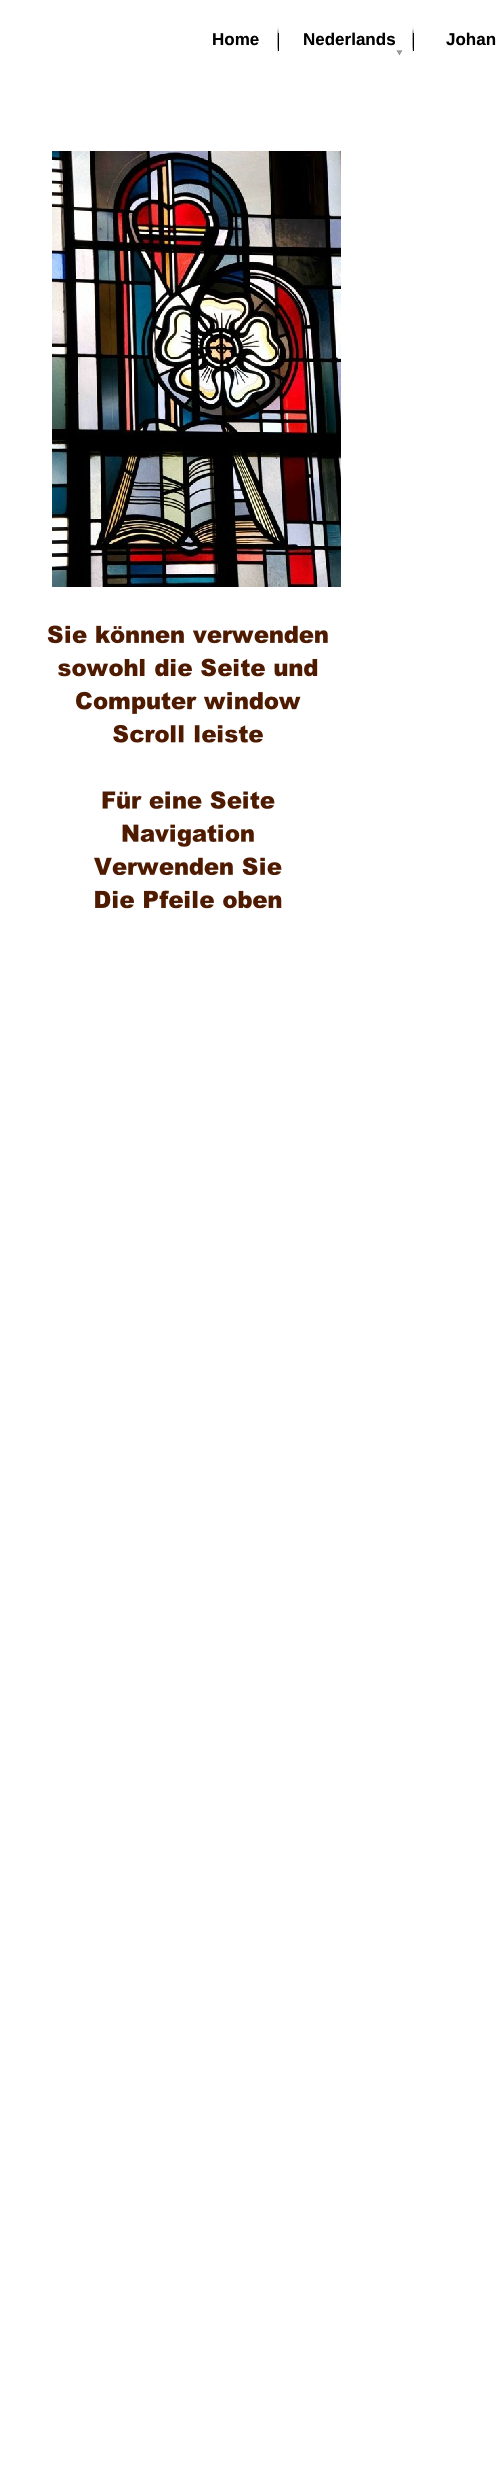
void draw(SkCanvas* canvas) {
	SkPaint paint;
	paint.setAntiAlias(true);
	canvas->clear(0xffffffff);
	canvas->drawImageRect(SkImages::DeferredFromEncodedData(SkData::MakeFromFileName("img1.png")), SkRect::MakeXYWH(277, 27, 137, 27), SkSamplingOptions());
	SkFont f1(fontMgr->matchFamilyStyle("Liberation Sans", SkFontStyle::Bold()), 17);
	f1.setSubpixel(true);
	paint.setColor(0xff000000);
	canvas->drawString("Home", 212, 45, f1, paint);
	canvas->drawImageRect(SkImages::DeferredFromEncodedData(SkData::MakeFromFileName("img2.png")), SkRect::MakeXYWH(396, 50, 7, 6), SkSamplingOptions());
	canvas->drawString("Nederlands", 303, 45, f1, paint);
	canvas->drawString("Johan", 446, 45, f1, paint);
	canvas->drawImageRect(SkImages::DeferredFromEncodedData(SkData::MakeFromFileName("img3.png")), SkRect::MakeXYWH(52, 151, 289, 436), SkSamplingOptions());
	canvas->drawImageRect(SkImages::DeferredFromEncodedData(SkData::MakeFromFileName("img4.png")), SkRect::MakeXYWH(47, 625, 281, 284), SkSamplingOptions());
}
